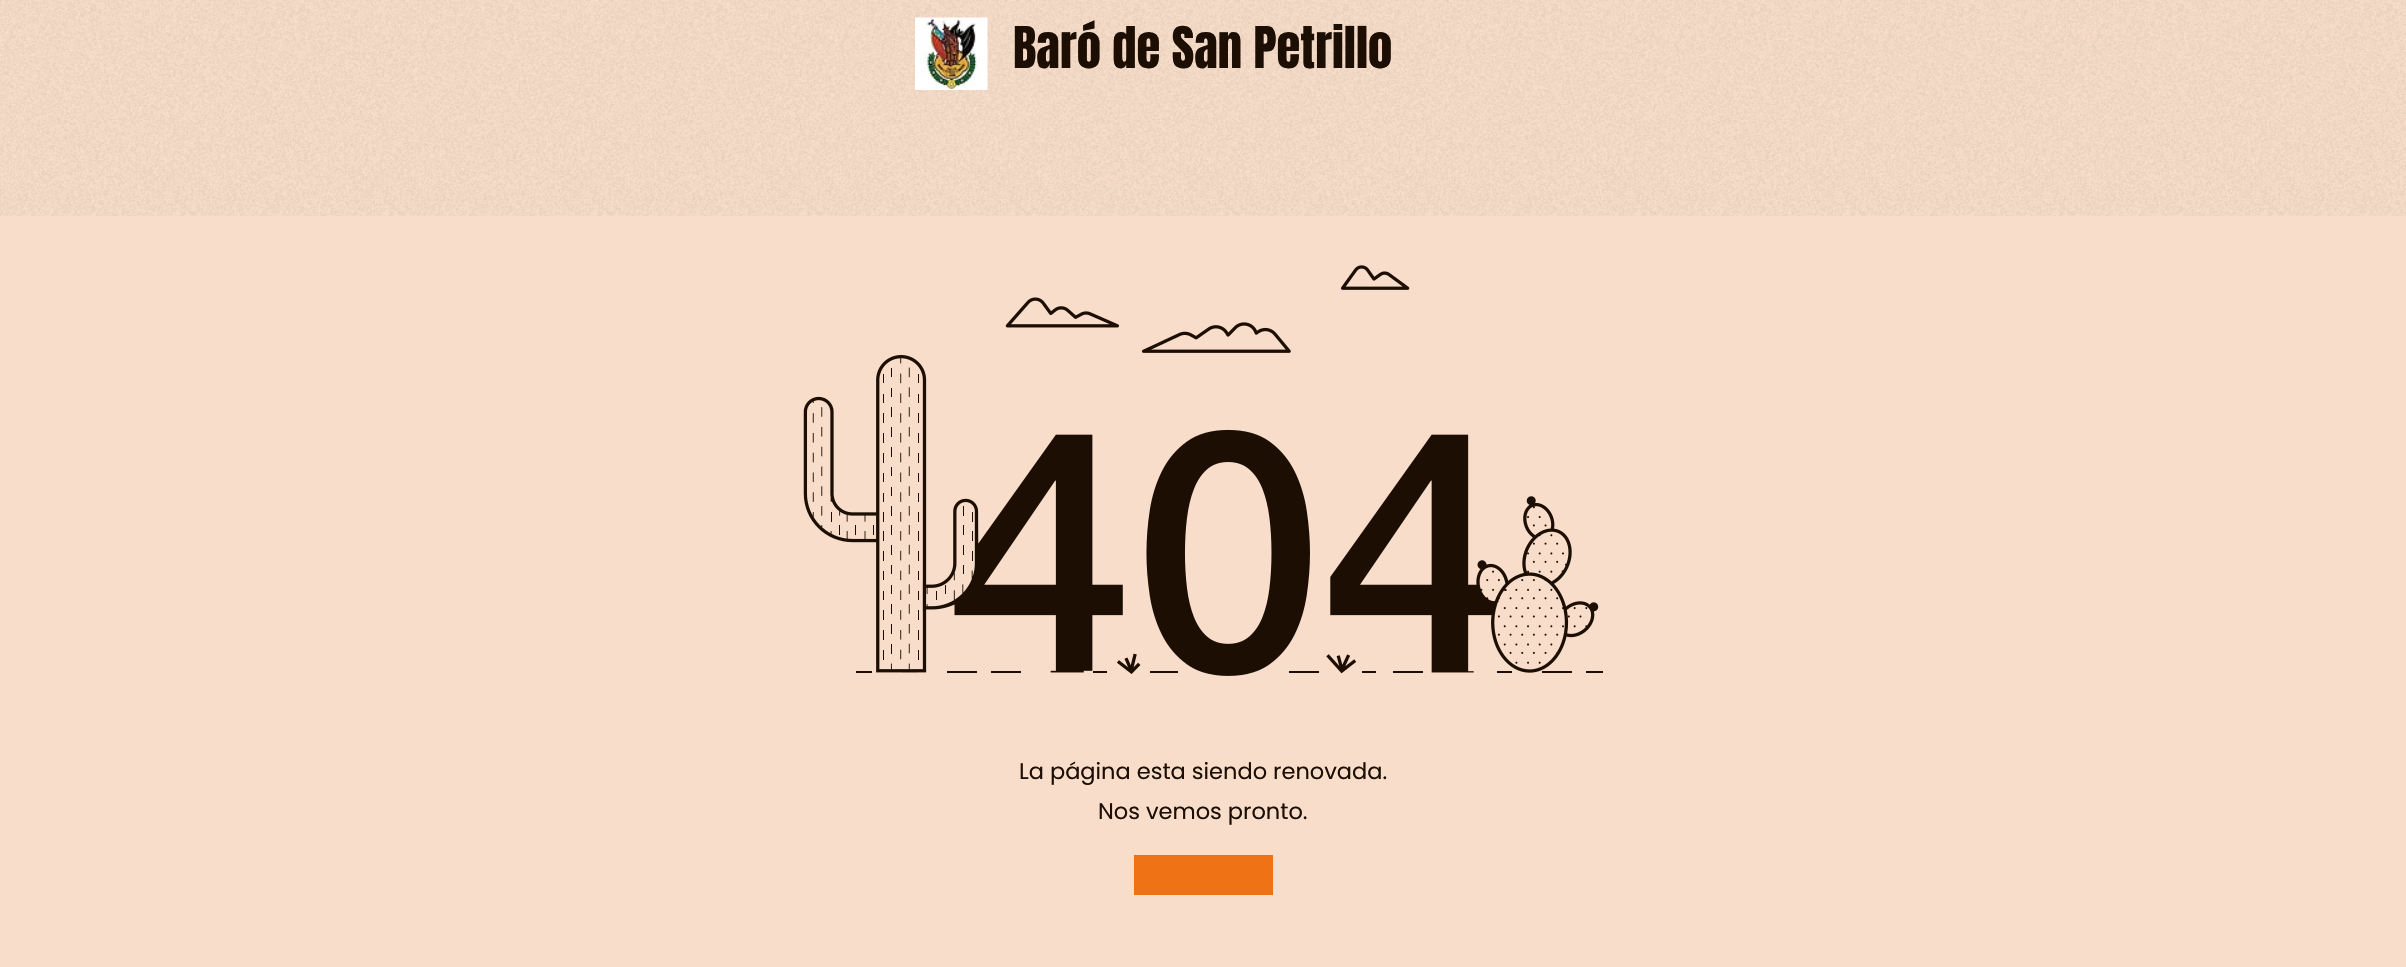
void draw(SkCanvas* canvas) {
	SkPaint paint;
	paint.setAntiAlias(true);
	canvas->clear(0xfff8deca);
	canvas->drawImageRect(SkImages::DeferredFromEncodedData(SkData::MakeFromFileName("img1.png")), SkRect::MakeXYWH(0, 0, 2406, 216), SkSamplingOptions());
	canvas->drawImageRect(SkImages::DeferredFromEncodedData(SkData::MakeFromFileName("img2.png")), SkRect::MakeXYWH(915, 17, 73, 73), SkSamplingOptions());
	SkFont f1(fontMgr->matchFamilyStyle("Anton", SkFontStyle::Normal()), 48.75);
	f1.setSubpixel(true);
	paint.setColor(0xff1d0e03);
	canvas->drawString("Baró de San Petrillo", 1013, 68, f1, paint);
	canvas->drawImageRect(SkImages::DeferredFromEncodedData(SkData::MakeFromFileName("img3.png")), SkRect::MakeXYWH(803, 265, 800, 411), SkSamplingOptions());
	SkFont f2(fontMgr->matchFamilyStyle("Poppins", SkFontStyle::Normal()), 22.5);
	f2.setSubpixel(true);
	canvas->drawString("La página esta siendo renovada.", 1019, 779, f2, paint);
	canvas->drawString("Nos vemos pronto.", 1098, 819, f2, paint);
	paint.setColor(0xffef7215);
	canvas->drawRect(SkRect::MakeXYWH(1134, 855, 139, 40), paint);
}
